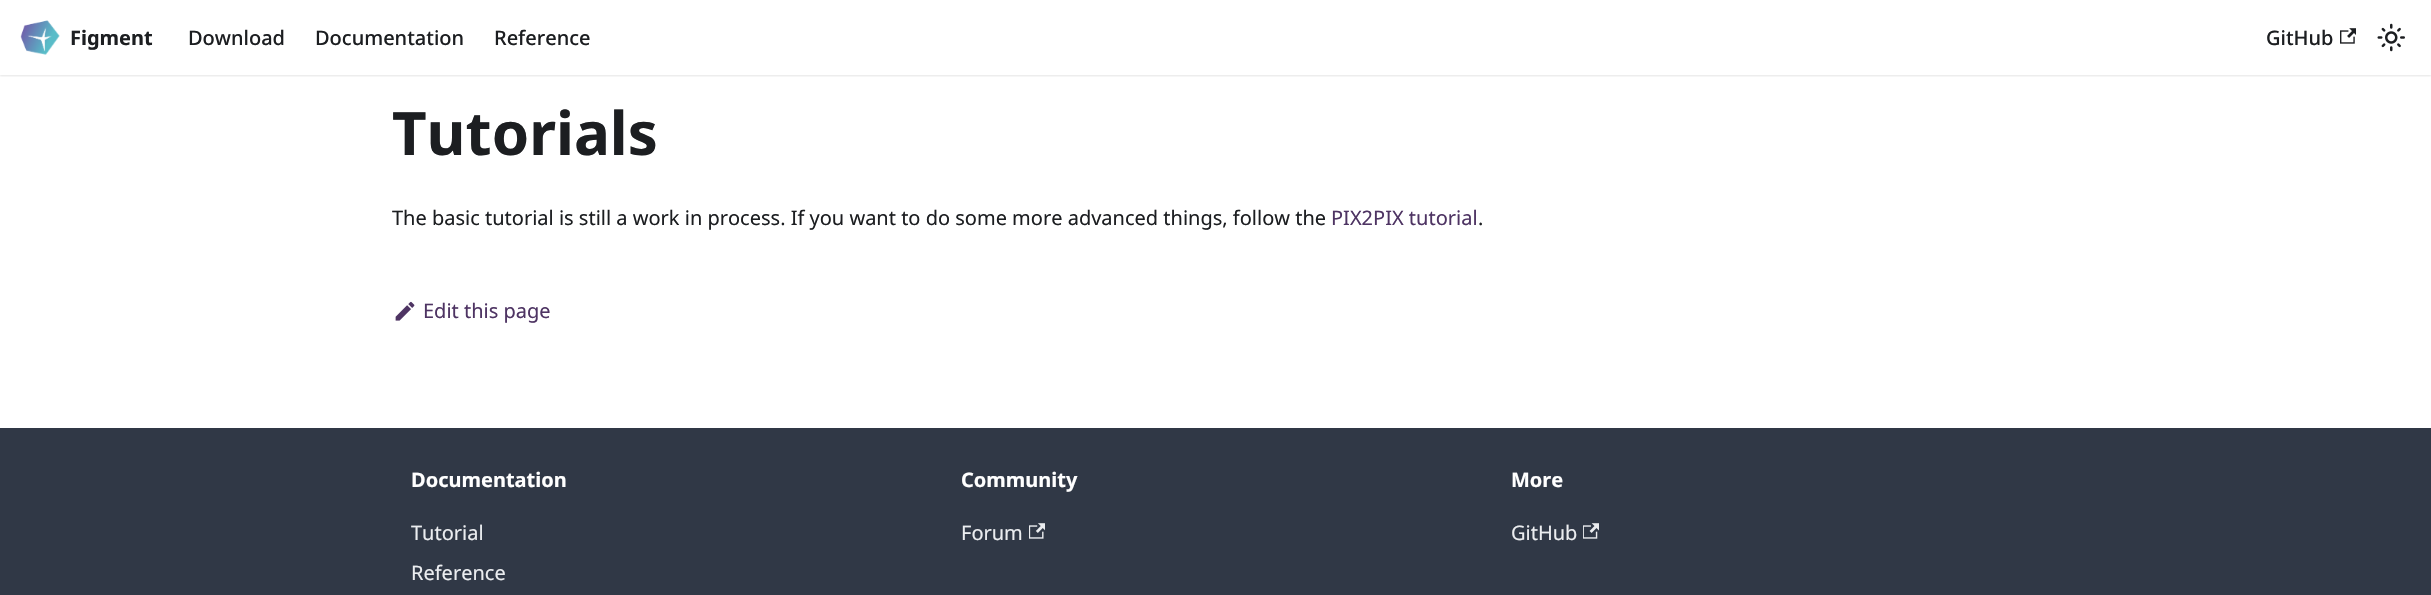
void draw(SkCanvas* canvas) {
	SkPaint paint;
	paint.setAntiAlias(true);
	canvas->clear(0xffffffff);
	canvas->save();
	canvas->clipRect(SkRect::MakeXYWH(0, 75, 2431, 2));
	paint.setColor(0x1a000000);
	paint.setMaskFilter(SkMaskFilter::MakeBlur(kNormal_SkBlurStyle, 1));
	canvas->drawRect(SkRect::MakeXYWH(0, 1, 2431, 75), paint);
	paint.setMaskFilter(nullptr);
	canvas->restore();
	canvas->drawImageRect(SkImages::DeferredFromEncodedData(SkData::MakeFromFileName("img1.png")), SkRect::MakeXYWH(20, 20, 40, 35), SkSamplingOptions());
	SkFont f1(fontMgr->matchFamilyStyle("Noto Sans", SkFontStyle::Bold()), 20);
	f1.setSubpixel(true);
	paint.setColor(0xff1c1e21);
	canvas->drawString("Figment", 70, 45, f1, paint);
	SkFont f2(fontMgr->matchFamilyStyle("Noto Sans", SkFontStyle(500, SkFontStyle::kNormal_Width, SkFontStyle::kUpright_Slant)), 20);
	f2.setSubpixel(true);
	canvas->drawString("Download", 188, 45, f2, paint);
	canvas->drawString("Documentation", 315, 45, f2, paint);
	canvas->drawString("Reference", 494, 45, f2, paint);
	canvas->drawString("GitHub", 2266, 45, f2, paint);
	canvas->drawImageRect(SkImages::DeferredFromEncodedData(SkData::MakeFromFileName("img2.png")), SkRect::MakeXYWH(2340, 28, 16, 16), SkSamplingOptions());
	canvas->drawImageRect(SkImages::DeferredFromEncodedData(SkData::MakeFromFileName("img3.png")), SkRect::MakeXYWH(2377, 23, 28, 29), SkSamplingOptions());
	SkFont f3(fontMgr->matchFamilyStyle("Noto Sans", SkFontStyle::Bold()), 60);
	f3.setSubpixel(true);
	canvas->drawString("Tutorials", 392, 155, f3, paint);
	SkFont f4(fontMgr->matchFamilyStyle("Noto Sans", SkFontStyle::Normal()), 20);
	f4.setSubpixel(true);
	canvas->drawString("The basic tutorial is still a work in process. If you want to do some more advanced things, follow the", 392, 225, f4, paint);
	paint.setColor(0xff4e3463);
	canvas->drawString("PIX2PIX tutorial", 1331, 225, f4, paint);
	paint.setColor(0xff1c1e21);
	canvas->drawString(".", 1478, 225, f4, paint);
	canvas->drawImageRect(SkImages::DeferredFromEncodedData(SkData::MakeFromFileName("img4.png")), SkRect::MakeXYWH(395, 301, 20, 20), SkSamplingOptions());
	paint.setColor(0xff4e3463);
	canvas->drawString("Edit this page", 423, 318, f4, paint);
	paint.setColor(0xff303846);
	canvas->drawRect(SkRect::MakeXYWH(0, 428, 2431, 167), paint);
	paint.setColor(0xffffffff);
	canvas->drawString("Documentation", 411, 487, f1, paint);
	paint.setColor(0xffebedf0);
	canvas->drawString("Tutorial", 411, 540, f4, paint);
	canvas->drawString("Reference", 411, 580, f4, paint);
	paint.setColor(0xffffffff);
	canvas->drawString("Community", 961, 487, f1, paint);
	paint.setColor(0xffebedf0);
	canvas->drawString("Forum", 961, 540, f4, paint);
	canvas->drawImageRect(SkImages::DeferredFromEncodedData(SkData::MakeFromFileName("img5.png")), SkRect::MakeXYWH(1029, 523, 16, 16), SkSamplingOptions());
	paint.setColor(0xffffffff);
	canvas->drawString("More", 1511, 487, f1, paint);
	paint.setColor(0xffebedf0);
	canvas->drawString("GitHub", 1511, 540, f4, paint);
	canvas->drawImageRect(SkImages::DeferredFromEncodedData(SkData::MakeFromFileName("img6.png")), SkRect::MakeXYWH(1583, 523, 16, 16), SkSamplingOptions());
}
